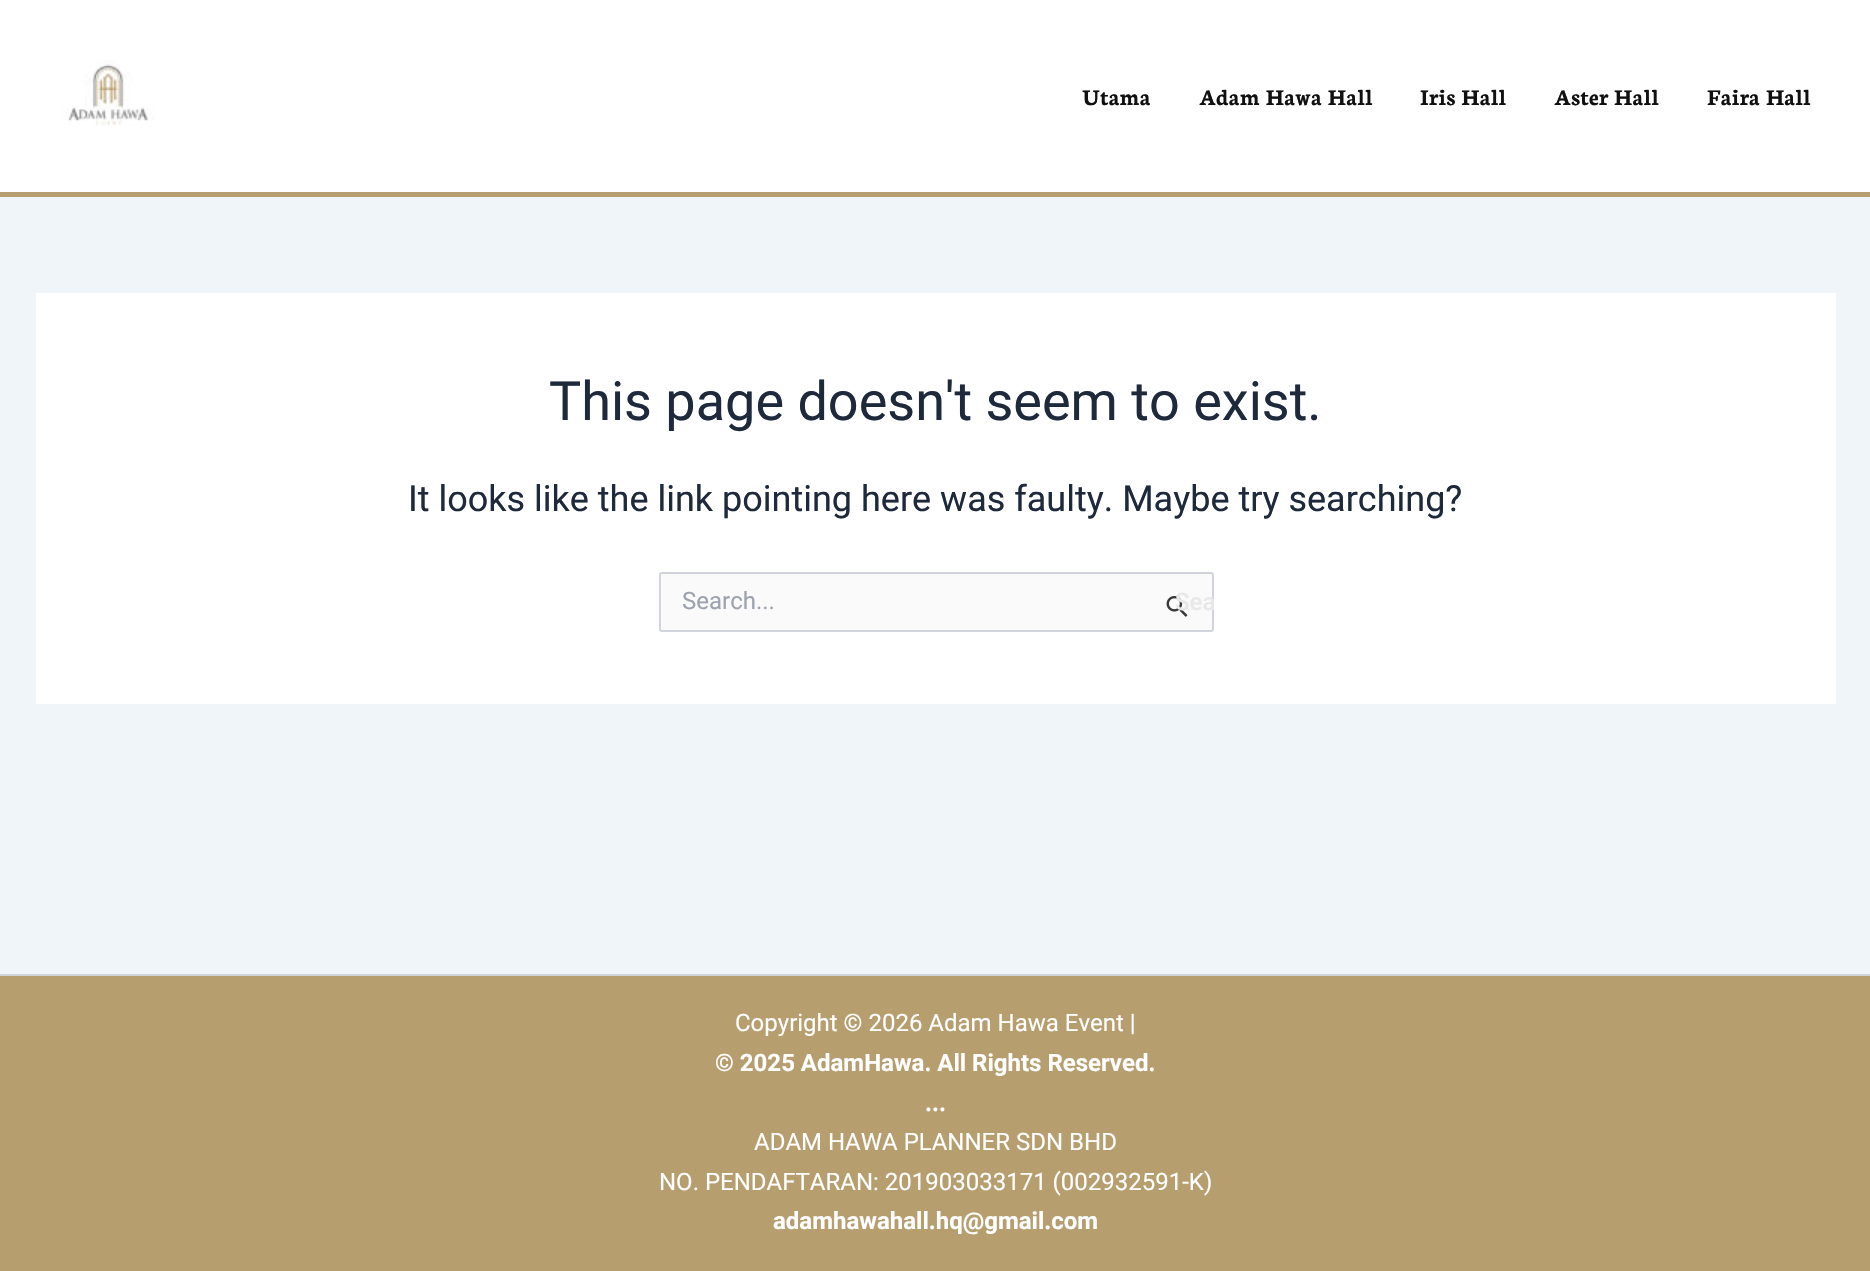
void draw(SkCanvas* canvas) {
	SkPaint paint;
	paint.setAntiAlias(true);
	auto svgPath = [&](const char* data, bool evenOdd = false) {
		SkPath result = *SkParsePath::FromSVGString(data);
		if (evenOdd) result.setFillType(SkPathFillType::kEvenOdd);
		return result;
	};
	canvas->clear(0xfff0f5fa);
	paint.setColor(0xffffffff);
	canvas->drawRect(SkRect::MakeXYWH(0, 0, 1870, 192), paint);
	paint.setColor(0xffb79e6f);
	canvas->drawRect(SkRect::MakeXYWH(0, 192, 1870, 5), paint);
	canvas->drawImageRect(SkImages::DeferredFromEncodedData(SkData::MakeFromFileName("img1.png")), SkRect::MakeXYWH(63, 60, 93, 67), SkSamplingOptions());
	SkFont f1(fontMgr->matchFamilyStyle("Neuton", SkFontStyle::Bold()), 24);
	f1.setSubpixel(true);
	paint.setColor(0xff111111);
	canvas->drawString("Utama", 1082, 105, f1, paint);
	canvas->drawString("Adam Hawa Hall", 1199, 105, f1, paint);
	canvas->drawString("Iris Hall", 1420, 105, f1, paint);
	canvas->drawString("Aster Hall", 1554, 105, f1, paint);
	canvas->drawString("Faira Hall", 1707, 105, f1, paint);
	paint.setColor(0xffffffff);
	canvas->drawRect(SkRect::MakeXYWH(36, 293, 1800, 411), paint);
	SkFont f2(fontMgr->matchFamilyStyle("Roboto", SkFontStyle::Normal()), 54);
	f2.setSubpixel(true);
	paint.setColor(0xff1e293b);
	canvas->drawString("This page doesn't seem to exist.", 549, 420, f2, paint);
	SkFont f3(fontMgr->matchFamilyStyle("Roboto", SkFontStyle::Normal()), 36);
	f3.setSubpixel(true);
	canvas->drawString("It looks like the link pointing here was faulty. Maybe try searching?", 408, 511, f3, paint);
	paint.setColor(0xfffafafa);
	canvas->drawRoundRect(SkRect::MakeXYWH(660, 573, 553, 58), 2, 2, paint);
	paint.setStroke(true);
	paint.setStrokeWidth(2);
	paint.setColor(0xffd1d5db);
	canvas->drawRoundRect(SkRect::MakeXYWH(660, 573, 553, 58), 2, 2, paint);
	SkFont f4(fontMgr->matchFamilyStyle("Roboto", SkFontStyle::Normal()), 24);
	f4.setSubpixel(true);
	paint.setStroke(false);
	paint.setColor(0xff9ca3af);
	canvas->drawString("Search...", 682, 609, f4, paint);
	canvas->drawImageRect(SkImages::DeferredFromEncodedData(SkData::MakeFromFileName("img2.png")), SkRect::MakeXYWH(1166, 596, 22, 21), SkSamplingOptions());
	canvas->save();
	canvas->clipPath(svgPath("M1149 572H1211C1212.5 572 1214 573.5 1214 575V632C1214 633.5 1212.5 635 1211 635H1149C1147.5 635 1146 633.5 1146 632V575C1146 573.5 1147.5 572 1149 572Z"), true);
	SkFont f5(fontMgr->matchFamilyStyle("Roboto", SkFontStyle(500, SkFontStyle::kNormal_Width, SkFontStyle::kUpright_Slant)), 24);
	f5.setSubpixel(true);
	paint.setColor(0xffe8e8e9);
	canvas->drawString("Sea", 1175, 610, f5, paint);
	canvas->restore();
	paint.setColor(0xffb79e6f);
	canvas->drawRect(SkRect::MakeXYWH(0, 976, 1870, 295), paint);
	paint.setColor(0xffd1d5db);
	canvas->drawRect(SkRect::MakeXYWH(0, 974, 1870, 2), paint);
	paint.setColor(0xffffffff);
	canvas->drawString("Copyright © 2026 Adam Hawa Event |", 735, 1031, f4, paint);
	SkFont f6(fontMgr->matchFamilyStyle("Roboto", SkFontStyle::Bold()), 24);
	f6.setSubpixel(true);
	canvas->drawString("© 2025 AdamHawa. All Rights Reserved.", 715, 1071, f6, paint);
	canvas->drawString("...", 925, 1111, f6, paint);
	canvas->drawString("ADAM HAWA PLANNER SDN BHD", 754, 1150, f4, paint);
	canvas->drawString("NO. PENDAFTARAN: 201903033171 (002932591-K)", 659, 1190, f4, paint);
	canvas->drawString("adamhawahall.hq@gmail.com", 773, 1229, f6, paint);
}
